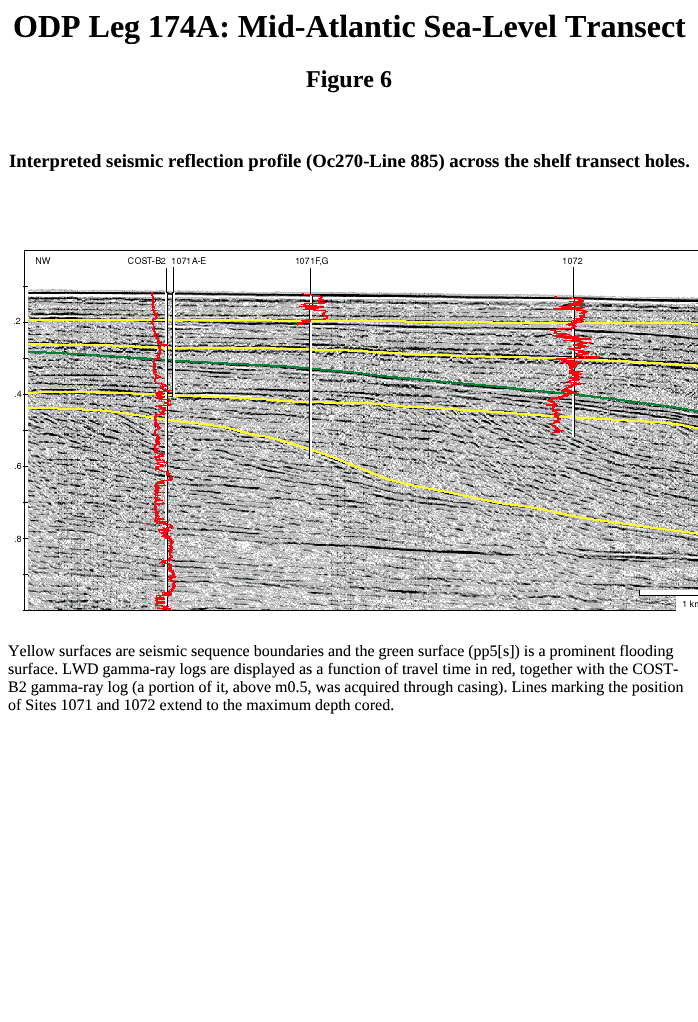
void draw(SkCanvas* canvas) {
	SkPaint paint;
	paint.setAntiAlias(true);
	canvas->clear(0xffffffff);
	SkFont f1(fontMgr->matchFamilyStyle("Liberation Serif", SkFontStyle::Bold()), 32);
	f1.setSubpixel(true);
	paint.setColor(0xff000000);
	canvas->drawString("ODP Leg 174A: Mid-Atlantic Sea-Level Transect", 13, 37, f1, paint);
	SkFont f2(fontMgr->matchFamilyStyle("Liberation Serif", SkFontStyle::Bold()), 24);
	f2.setSubpixel(true);
	canvas->drawString("Figure 6", 306, 87, f2, paint);
	SkFont f3(fontMgr->matchFamilyStyle("Liberation Serif", SkFontStyle::Bold()), 18.7);
	f3.setSubpixel(true);
	canvas->drawString("Interpreted seismic reflection profile (Oc270-Line 885) across the shelf transect holes.", 9, 167, f3, paint);
	canvas->drawImageRect(SkImages::DeferredFromEncodedData(SkData::MakeFromFileName("img1.png")), SkRect::MakeXYWH(14, 250, 684, 361), SkSamplingOptions());
	SkFont f4(fontMgr->matchFamilyStyle("Liberation Serif", SkFontStyle::Normal()), 16);
	f4.setSubpixel(true);
	canvas->drawString("Yellow surfaces are seismic sequence boundaries and the green surface (pp5[s]) is a prominent flooding", 8, 656, f4, paint);
	canvas->drawString("surface. LWD gamma-ray logs are displayed as a function of travel time in red, together with the COST-", 8, 674, f4, paint);
	canvas->drawString("B2 gamma-ray log (a portion of it, above m0.5, was acquired through casing). Lines marking the position", 8, 692, f4, paint);
	canvas->drawString("of Sites 1071 and 1072 extend to the maximum depth cored.", 8, 710, f4, paint);
}
